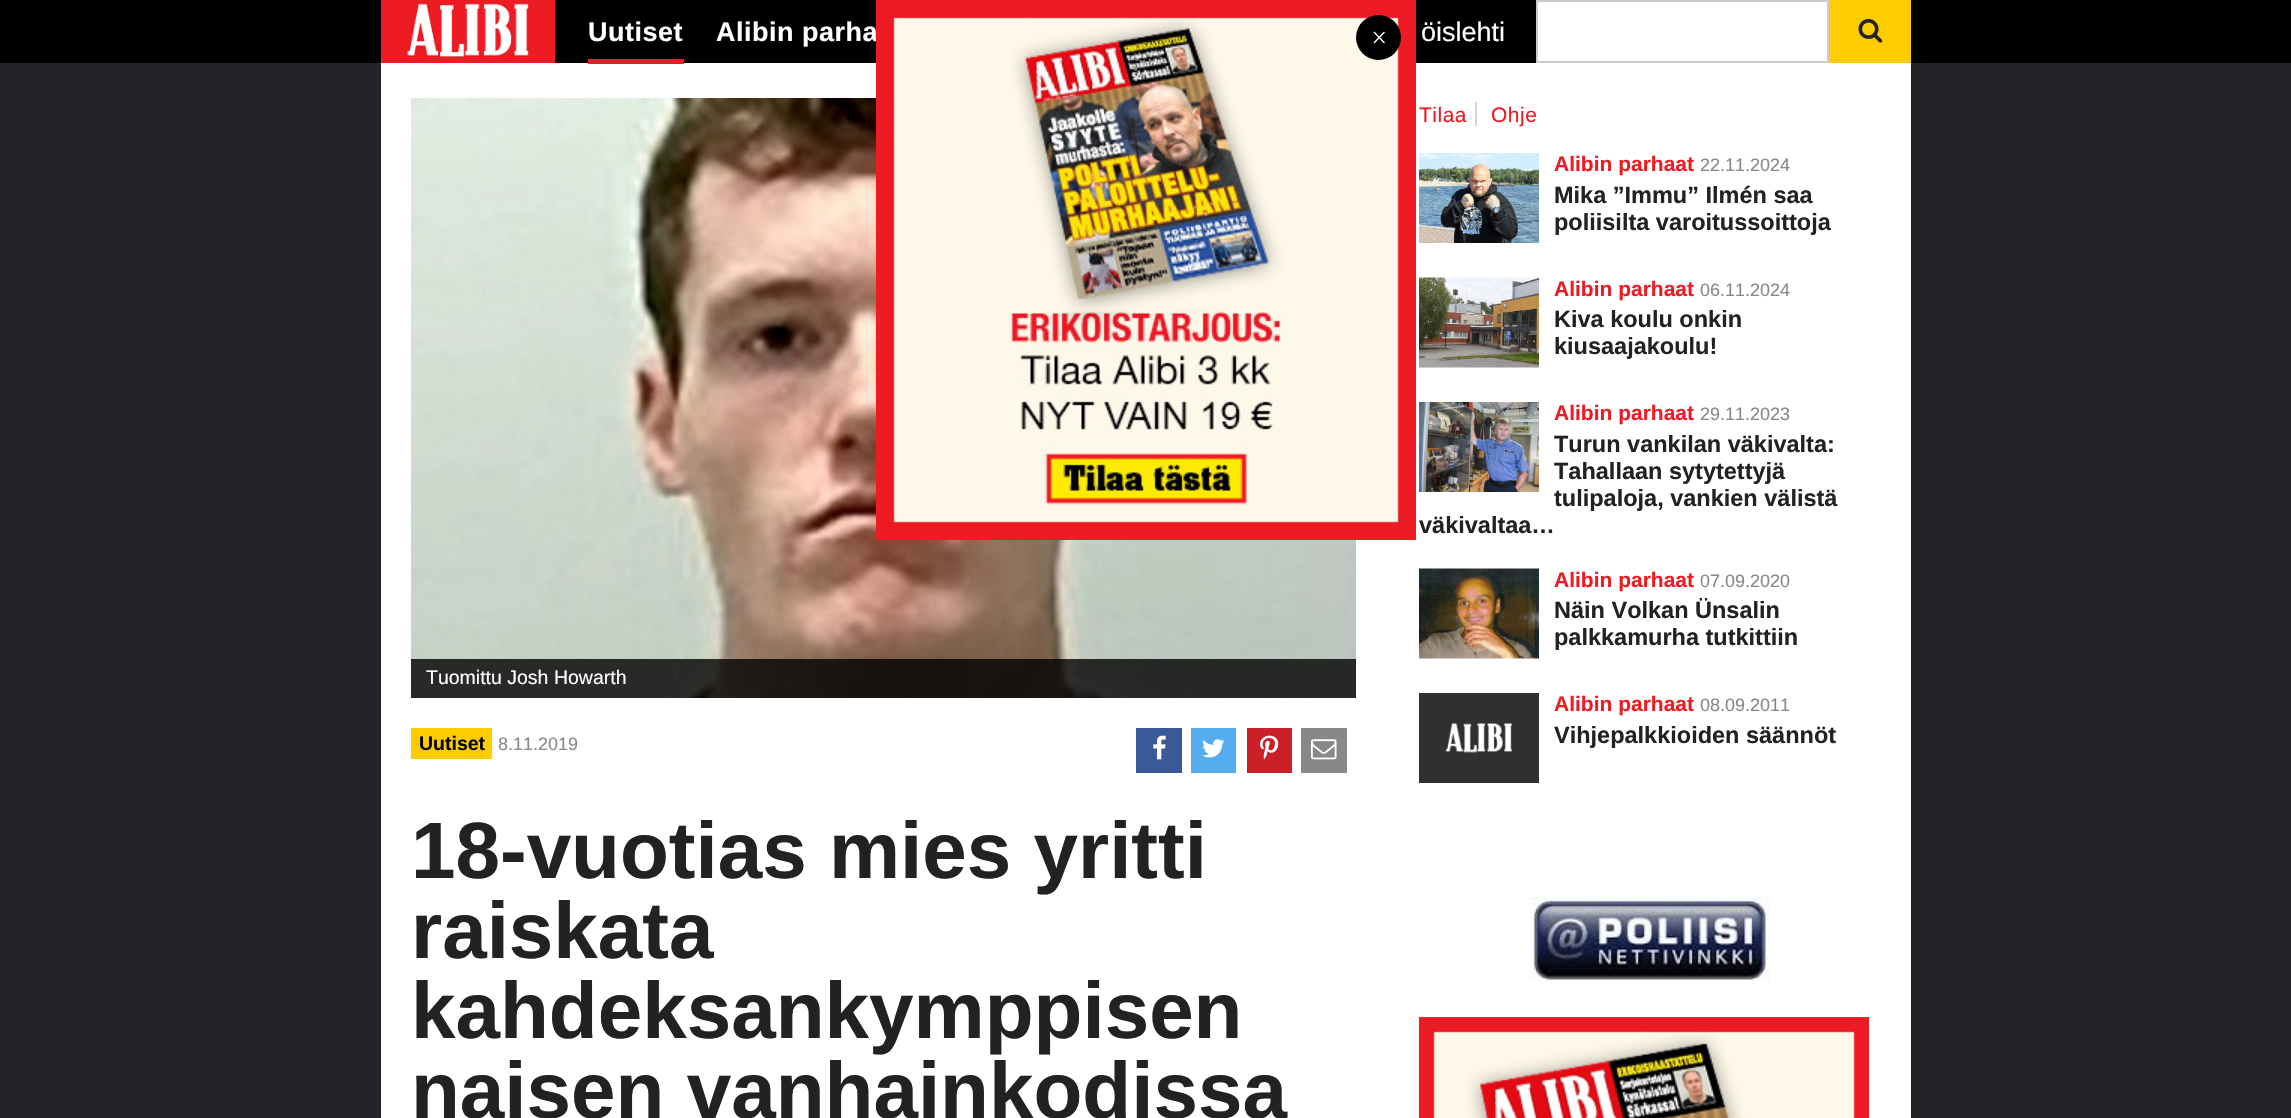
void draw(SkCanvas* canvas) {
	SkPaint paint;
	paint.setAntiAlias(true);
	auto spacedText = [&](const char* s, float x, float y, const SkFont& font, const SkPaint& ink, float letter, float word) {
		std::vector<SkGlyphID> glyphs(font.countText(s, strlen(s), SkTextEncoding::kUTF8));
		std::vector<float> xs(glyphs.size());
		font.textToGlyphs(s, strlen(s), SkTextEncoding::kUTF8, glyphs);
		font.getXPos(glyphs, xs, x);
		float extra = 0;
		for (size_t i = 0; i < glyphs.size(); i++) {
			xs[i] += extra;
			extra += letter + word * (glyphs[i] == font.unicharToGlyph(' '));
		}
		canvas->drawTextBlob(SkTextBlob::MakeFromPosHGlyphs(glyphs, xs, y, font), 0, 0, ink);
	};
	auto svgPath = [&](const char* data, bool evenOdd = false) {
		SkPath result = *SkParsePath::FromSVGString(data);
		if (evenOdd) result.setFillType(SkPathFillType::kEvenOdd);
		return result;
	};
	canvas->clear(0xff232427);
	paint.setColor(0xff000000);
	canvas->drawRect(SkRect::MakeXYWH(0, 0, 2291, 63), paint);
	paint.setColor(0xffed1b24);
	canvas->drawRect(SkRect::MakeXYWH(381, 0, 174, 63), paint);
	canvas->drawImageRect(SkImages::DeferredFromEncodedData(SkData::MakeFromFileName("img1.png")), SkRect::MakeXYWH(407, 3, 122, 54), SkSamplingOptions());
	paint.setColor(0xffffffff);
	canvas->drawRect(SkRect::MakeXYWH(381, 63, 1530, 1055), paint);
	paint.setColor(0xffed1b24);
	canvas->drawRect(SkRect::MakeXYWH(588, 59, 96, 5), paint);
	SkFont f1(fontMgr->matchFamilyStyle("Liberation Sans", SkFontStyle::Bold()), 27);
	f1.setSubpixel(true);
	paint.setColor(0xffffffff);
	spacedText("Uutiset", 588, 41, f1, paint, 0.5, 0);
	spacedText("Alibin parha", 716, 41, f1, paint, 0.5, 0);
	SkFont f2(fontMgr->matchFamilyStyle("Liberation Sans", SkFontStyle::Normal()), 27);
	f2.setSubpixel(true);
	canvas->drawString("öislehti", 1421, 41, f2, paint);
	canvas->drawRect(SkRect::MakeXYWH(1537, 1, 291, 61), paint);
	paint.setStroke(true);
	paint.setStrokeWidth(2);
	paint.setColor(0xffcccccc);
	canvas->drawRect(SkRect::MakeXYWH(1537, 1, 291, 61), paint);
	paint.setStroke(false);
	paint.setColor(0xffffcc00);
	canvas->drawRect(SkRect::MakeXYWH(1829, 0, 82, 63), paint);
	canvas->drawImageRect(SkImages::DeferredFromEncodedData(SkData::MakeFromFileName("img2.png")), SkRect::MakeXYWH(1858, 19, 25, 24), SkSamplingOptions());
	canvas->drawImageRect(SkImages::DeferredFromEncodedData(SkData::MakeFromFileName("img11.png")), SkRect::MakeXYWH(411, 98, 945, 600), SkSamplingOptions());
	canvas->drawImageRect(SkImages::DeferredFromEncodedData(SkData::MakeFromFileName("img3.png")), SkRect::MakeXYWH(876, 0, 540, 540), SkSamplingOptions());
	paint.setColor(0xff000000);
	canvas->drawCircle(1378.5, 37.5, 22.5, paint);
	paint.setColor(0xffffffff);
	canvas->drawPath(svgPath("M1384 31.5L1385 32.5L1374.5 43.5L1373.5 42.5Z"), paint);
	canvas->drawPath(svgPath("M1373.5 32.5L1374.5 31.5L1385 42.5L1384 43.5Z"), paint);
	SkFont f3(fontMgr->matchFamilyStyle("Liberation Sans", SkFontStyle::Normal()), 21);
	f3.setSubpixel(true);
	paint.setColor(0xffed1b24);
	spacedText("Tilaa", 1419, 122, f3, paint, 0.5, 0);
	paint.setColor(0xffd5d6da);
	canvas->drawRect(SkRect::MakeXYWH(1475, 102, 2, 24), paint);
	paint.setColor(0xffed1b24);
	spacedText("Ohje", 1491, 122, f3, paint, 0.5, 0);
	canvas->drawImageRect(SkImages::DeferredFromEncodedData(SkData::MakeFromFileName("img4.png")), SkRect::MakeXYWH(1419, 153, 120, 90), SkSamplingOptions());
	SkFont f4(fontMgr->matchFamilyStyle("Liberation Sans", SkFontStyle::Bold()), 21);
	f4.setSubpixel(true);
	canvas->drawString("Alibin parhaat", 1554, 171, f4, paint);
	SkFont f5(fontMgr->matchFamilyStyle("Liberation Sans", SkFontStyle::Normal()), 18);
	f5.setSubpixel(true);
	paint.setColor(0xff888888);
	canvas->drawString("22.11.2024", 1700, 171, f5, paint);
	SkFont f6(fontMgr->matchFamilyStyle("Liberation Sans", SkFontStyle::Bold()), 23.5);
	f6.setSubpixel(true);
	paint.setColor(0xff222222);
	canvas->drawString("Mika ”Immu” Ilmén saa", 1554, 203, f6, paint);
	canvas->drawString("poliisilta varoitussoittoja", 1554, 230, f6, paint);
	canvas->drawImageRect(SkImages::DeferredFromEncodedData(SkData::MakeFromFileName("img5.png")), SkRect::MakeXYWH(1419, 277, 120, 91), SkSamplingOptions());
	paint.setColor(0xffed1b24);
	canvas->drawString("Alibin parhaat", 1554, 296, f4, paint);
	paint.setColor(0xff888888);
	canvas->drawString("06.11.2024", 1700, 296, f5, paint);
	paint.setColor(0xff222222);
	canvas->drawString("Kiva koulu onkin", 1554, 327, f6, paint);
	canvas->drawString("kiusaajakoulu!", 1554, 354, f6, paint);
	canvas->drawImageRect(SkImages::DeferredFromEncodedData(SkData::MakeFromFileName("img6.png")), SkRect::MakeXYWH(1419, 402, 120, 90), SkSamplingOptions());
	paint.setColor(0xffed1b24);
	canvas->drawString("Alibin parhaat", 1554, 420, f4, paint);
	paint.setColor(0xff888888);
	canvas->drawString("29.11.2023", 1700, 420, f5, paint);
	paint.setColor(0xff222222);
	canvas->drawString("Turun vankilan väkivalta:", 1554, 452, f6, paint);
	canvas->drawString("Tahallaan sytytettyjä", 1554, 479, f6, paint);
	canvas->drawString("tulipaloja, vankien välistä", 1554, 506, f6, paint);
	canvas->drawString("väkivaltaa…", 1419, 533, f6, paint);
	canvas->drawImageRect(SkImages::DeferredFromEncodedData(SkData::MakeFromFileName("img7.png")), SkRect::MakeXYWH(1419, 568, 120, 91), SkSamplingOptions());
	paint.setColor(0xffed1b24);
	canvas->drawString("Alibin parhaat", 1554, 587, f4, paint);
	paint.setColor(0xff888888);
	canvas->drawString("07.09.2020", 1700, 587, f5, paint);
	paint.setColor(0xff222222);
	canvas->drawString("Näin Volkan Ünsalin", 1554, 618, f6, paint);
	canvas->drawString("palkkamurha tutkittiin", 1554, 645, f6, paint);
	canvas->drawImageRect(SkImages::DeferredFromEncodedData(SkData::MakeFromFileName("img8.png")), SkRect::MakeXYWH(1419, 693, 120, 90), SkSamplingOptions());
	paint.setColor(0xffed1b24);
	canvas->drawString("Alibin parhaat", 1554, 711, f4, paint);
	paint.setColor(0xff888888);
	canvas->drawString("08.09.2011", 1700, 711, f5, paint);
	paint.setColor(0xff222222);
	canvas->drawString("Vihjepalkkioiden säännöt", 1554, 743, f6, paint);
	canvas->drawImageRect(SkImages::DeferredFromEncodedData(SkData::MakeFromFileName("img9.png")), SkRect::MakeXYWH(1530, 897, 240, 84), SkSamplingOptions());
	canvas->drawImageRect(SkImages::DeferredFromEncodedData(SkData::MakeFromFileName("img10.png")), SkRect::MakeXYWH(1419, 1017, 450, 101), SkSamplingOptions());
	paint.setColor(0xcc000000);
	canvas->drawRect(SkRect::MakeXYWH(411, 659, 945, 39), paint);
	SkFont f7(fontMgr->matchFamilyStyle("Liberation Sans", SkFontStyle::Normal()), 19.5);
	f7.setSubpixel(true);
	paint.setColor(0xffffffff);
	canvas->drawString("Tuomittu Josh Howarth", 426, 684, f7, paint);
	paint.setColor(0xffffcc00);
	canvas->drawRect(SkRect::MakeXYWH(411, 728, 81, 31), paint);
	SkFont f8(fontMgr->matchFamilyStyle("Liberation Sans", SkFontStyle::Bold()), 19.5);
	f8.setSubpixel(true);
	paint.setColor(0xff000000);
	canvas->drawString("Uutiset", 419, 750, f8, paint);
	paint.setColor(0xff888888);
	canvas->drawString("8.11.2019", 498, 750, f5, paint);
	paint.setColor(0xff3b5998);
	canvas->drawRect(SkRect::MakeXYWH(1136, 728, 46, 45), paint);
	canvas->drawImageRect(SkImages::DeferredFromEncodedData(SkData::MakeFromFileName("img12.png")), SkRect::MakeXYWH(1153, 735, 13, 25), SkSamplingOptions());
	paint.setColor(0xff55acee);
	canvas->drawRect(SkRect::MakeXYWH(1191, 728, 45, 45), paint);
	canvas->drawImageRect(SkImages::DeferredFromEncodedData(SkData::MakeFromFileName("img13.png")), SkRect::MakeXYWH(1202, 739, 23, 19), SkSamplingOptions());
	paint.setColor(0xffcb2027);
	canvas->drawRect(SkRect::MakeXYWH(1247, 728, 45, 45), paint);
	canvas->drawImageRect(SkImages::DeferredFromEncodedData(SkData::MakeFromFileName("img14.png")), SkRect::MakeXYWH(1260, 735, 19, 25), SkSamplingOptions());
	paint.setColor(0xff888888);
	canvas->drawRect(SkRect::MakeXYWH(1301, 728, 46, 45), paint);
	canvas->drawImageRect(SkImages::DeferredFromEncodedData(SkData::MakeFromFileName("img15.png")), SkRect::MakeXYWH(1311, 739, 26, 21), SkSamplingOptions());
	SkFont f9(fontMgr->matchFamilyStyle("Liberation Sans", SkFontStyle::Bold()), 80);
	f9.setSubpixel(true);
	paint.setColor(0xff222222);
	canvas->drawString("18-vuotias mies yritti", 411, 878, f9, paint);
	canvas->drawString("raiskata", 411, 958, f9, paint);
	canvas->drawString("kahdeksankymppisen", 411, 1038, f9, paint);
	canvas->drawString("naisen vanhainkodissa", 411, 1118, f9, paint);
}
